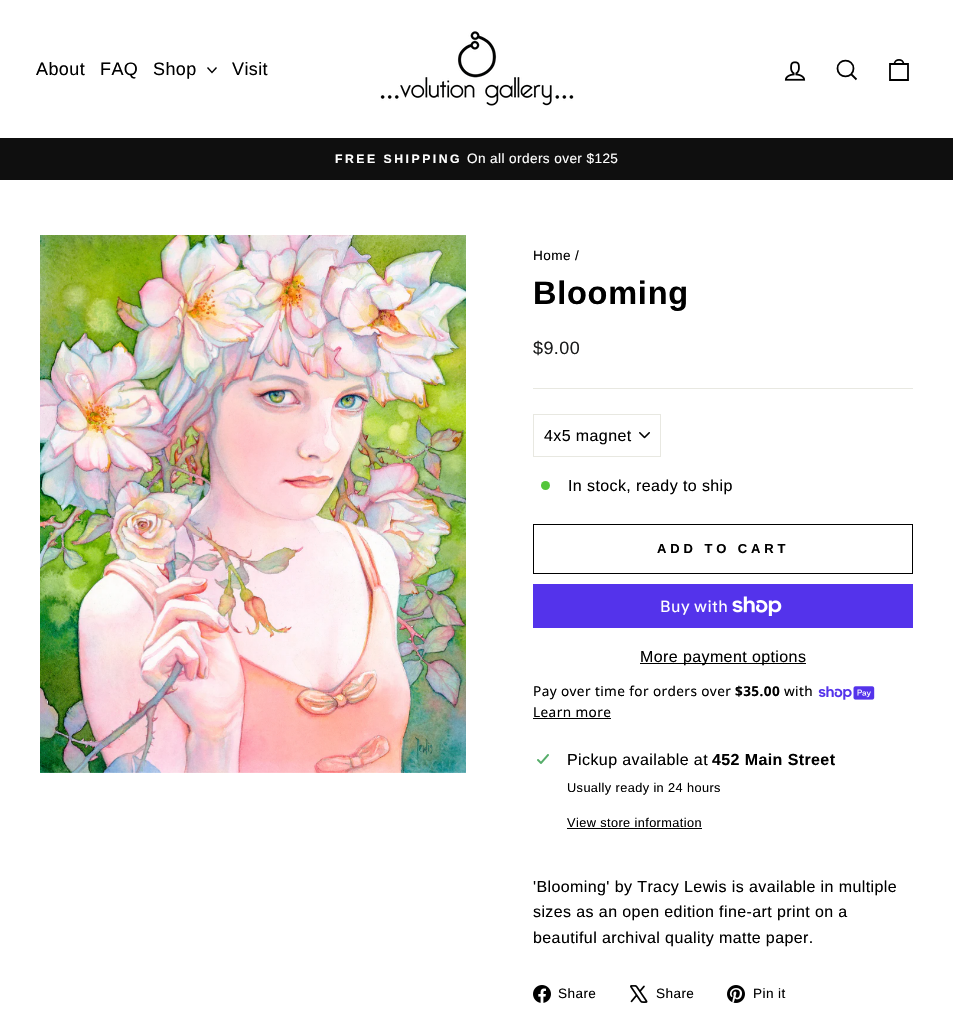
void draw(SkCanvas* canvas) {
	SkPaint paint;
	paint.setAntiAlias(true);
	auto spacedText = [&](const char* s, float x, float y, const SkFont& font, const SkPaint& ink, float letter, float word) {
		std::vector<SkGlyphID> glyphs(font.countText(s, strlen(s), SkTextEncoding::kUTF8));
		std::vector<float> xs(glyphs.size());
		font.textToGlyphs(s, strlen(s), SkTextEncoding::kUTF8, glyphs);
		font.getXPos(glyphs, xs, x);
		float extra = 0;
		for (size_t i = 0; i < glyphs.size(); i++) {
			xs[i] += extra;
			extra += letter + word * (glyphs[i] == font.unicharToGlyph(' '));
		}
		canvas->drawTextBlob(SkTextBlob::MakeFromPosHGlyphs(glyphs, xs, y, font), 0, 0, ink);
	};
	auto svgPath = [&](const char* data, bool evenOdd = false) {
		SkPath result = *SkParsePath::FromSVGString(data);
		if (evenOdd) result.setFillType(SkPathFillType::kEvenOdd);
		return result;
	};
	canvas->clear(0xffffffff);
	SkFont f1(fontMgr->matchFamilyStyle("Arimo", SkFontStyle::Normal()), 18);
	f1.setSubpixel(true);
	paint.setColor(0xff000000);
	spacedText("About", 36, 75, f1, paint, 0.4, 0);
	spacedText("FAQ", 100, 75, f1, paint, 0.4, 0);
	spacedText("Shop", 153, 75, f1, paint, 0.4, 0);
	paint.setStroke(true);
	paint.setStrokeWidth(1.4);
	canvas->drawPath(svgPath("M207.5 67.5L212 72.5L216.5 67.5"), paint);
	paint.setStroke(false);
	spacedText("Visit", 232, 75, f1, paint, 0.4, 0);
	canvas->drawImageRect(SkImages::DeferredFromEncodedData(SkData::MakeFromFileName("img1.png")), SkRect::MakeXYWH(380, 31, 194, 75), SkSamplingOptions());
	canvas->drawImageRect(SkImages::DeferredFromEncodedData(SkData::MakeFromFileName("img2.png")), SkRect::MakeXYWH(784, 61, 22, 20), SkSamplingOptions());
	paint.setStroke(true);
	paint.setStrokeWidth(1.8);
	canvas->drawPath(svgPath("M853.5 68.5C853.5 79 837.5 79 837.5 68.5C837.5 58 853.5 58 853.5 68.5ZM856.5 79.5L851.5 74.5"), paint);
	canvas->drawPath(svgPath("M890 64H908V80H890ZM894.5 64C894.5 58.5 903.5 58.5 903.5 64"), paint);
	paint.setStroke(false);
	paint.setColor(0xff0f0f0f);
	canvas->drawRect(SkRect::MakeXYWH(0, 138, 953, 42), paint);
	SkFont f2(fontMgr->matchFamilyStyle("Arimo", SkFontStyle::Bold()), 12.25);
	f2.setSubpixel(true);
	paint.setColor(0xffffffff);
	spacedText("FREE SHIPPING", 335, 163, f2, paint, 2.5, 0);
	SkFont f3(fontMgr->matchFamilyStyle("Arimo", SkFontStyle::Normal()), 13.6);
	f3.setSubpixel(true);
	spacedText("On all orders over $125", 467, 163, f3, paint, 0.4, 0);
	canvas->drawImageRect(SkImages::DeferredFromEncodedData(SkData::MakeFromFileName("img3.png")), SkRect::MakeXYWH(40, 235, 426, 538), SkSamplingOptions());
	paint.setColor(0xff000000);
	spacedText("Home /", 533, 260, f3, paint, 0.4, 0);
	SkFont f4(fontMgr->matchFamilyStyle("Arimo", SkFontStyle::Bold()), 32.5);
	f4.setSubpixel(true);
	spacedText("Blooming", 533, 304, f4, paint, 0.75, 0);
	paint.setColor(0xff1c1d1d);
	spacedText("$9.00", 533, 354, f1, paint, 0.4, 0);
	paint.setColor(0xffe8e8e1);
	canvas->drawRect(SkRect::MakeXYWH(533, 388, 380, 1), paint);
	canvas->drawImageRect(SkImages::DeferredFromEncodedData(SkData::MakeFromFileName("img4.png")), SkRect::MakeXYWH(639, 432, 11, 7), SkSamplingOptions());
	paint.setStroke(true);
	paint.setStrokeWidth(1);
	canvas->drawRect(SkRect::MakeXYWH(533.5, 414.5, 127, 42), paint);
	SkFont f5(fontMgr->matchFamilyStyle("Arimo", SkFontStyle::Normal()), 16);
	f5.setSubpixel(true);
	paint.setStroke(false);
	paint.setColor(0xff000000);
	spacedText("4x5 magnet", 544, 441, f5, paint, 0.4, 0);
	paint.setColor(0xff54c63a);
	canvas->drawCircle(545.5, 485.5, 4.5, paint);
	paint.setColor(0xff000000);
	spacedText("In stock, ready to ship", 568, 491, f5, paint, 0.4, 0);
	paint.setStroke(true);
	canvas->drawRect(SkRect::MakeXYWH(533.5, 524.5, 379, 49), paint);
	SkFont f6(fontMgr->matchFamilyStyle("Arimo", SkFontStyle::Bold()), 13);
	f6.setSubpixel(true);
	paint.setStroke(false);
	spacedText("ADD TO CART", 657, 553, f6, paint, 3.9, 0);
	paint.setColor(0xff5433eb);
	canvas->drawRect(SkRect::MakeXYWH(533, 584, 380, 44), paint);
	SkFont f7(fontMgr->matchFamilyStyle("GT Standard", SkFontStyle::Normal()), 16);
	f7.setSubpixel(true);
	paint.setColor(0xffffffff);
	spacedText("Buy with", 660, 612, f7, paint, 0.4, 0);
	canvas->drawImageRect(SkImages::DeferredFromEncodedData(SkData::MakeFromFileName("img5.png")), SkRect::MakeXYWH(732, 596, 50, 20), SkSamplingOptions());
	paint.setColor(0xff000000);
	canvas->drawRect(SkRect::MakeXYWH(640, 663, 166, 1), paint);
	spacedText("More payment options", 640, 662, f5, paint, 0.4, 0);
	SkFont f8(fontMgr->matchFamilyStyle("Noto Sans", SkFontStyle::Normal()), 13.6);
	f8.setSubpixel(true);
	spacedText("Pay over time for orders over", 533, 696, f8, paint, 0.4, 0);
	SkFont f9(fontMgr->matchFamilyStyle("Noto Sans", SkFontStyle::Bold()), 13.6);
	f9.setSubpixel(true);
	spacedText("$35.00", 735, 696, f9, paint, 0.4, 0);
	spacedText("with", 784, 696, f8, paint, 0.4, 0);
	canvas->drawImageRect(SkImages::DeferredFromEncodedData(SkData::MakeFromFileName("img6.png")), SkRect::MakeXYWH(818, 686, 57, 14), SkSamplingOptions());
	spacedText("Learn more", 533, 717, f8, paint, 0.4, 0);
	canvas->drawRect(SkRect::MakeXYWH(533, 718, 78, 1), paint);
	canvas->drawImageRect(SkImages::DeferredFromEncodedData(SkData::MakeFromFileName("img7.png")), SkRect::MakeXYWH(537, 754, 12, 10), SkSamplingOptions());
	spacedText("Pickup available at", 567, 765, f5, paint, 0.4, 0);
	SkFont f10(fontMgr->matchFamilyStyle("Arimo", SkFontStyle::Bold()), 16);
	f10.setSubpixel(true);
	spacedText("452 Main Street", 712, 765, f10, paint, 0.4, 0);
	SkFont f11(fontMgr->matchFamilyStyle("Arimo", SkFontStyle::Normal()), 12.75);
	f11.setSubpixel(true);
	spacedText("Usually ready in 24 hours", 567, 792, f11, paint, 0.4, 0);
	spacedText("View store information", 567, 827, f11, paint, 0.4, 0);
	canvas->drawRect(SkRect::MakeXYWH(567, 828, 135, 1), paint);
	spacedText("'Blooming' by Tracy Lewis is available in multiple", 533, 892, f5, paint, 0.4, 0);
	spacedText("sizes as an open edition fine-art print on a", 533, 917, f5, paint, 0.4, 0);
	spacedText("beautiful archival quality matte paper.", 533, 943, f5, paint, 0.4, 0);
	canvas->drawImageRect(SkImages::DeferredFromEncodedData(SkData::MakeFromFileName("img8.png")), SkRect::MakeXYWH(533, 985, 18, 18), SkSamplingOptions());
	spacedText("Share", 558, 998, f3, paint, 0.4, 0);
	canvas->drawImageRect(SkImages::DeferredFromEncodedData(SkData::MakeFromFileName("img9.png")), SkRect::MakeXYWH(630, 985, 18, 18), SkSamplingOptions());
	spacedText("Share", 656, 998, f3, paint, 0.4, 0);
	canvas->drawImageRect(SkImages::DeferredFromEncodedData(SkData::MakeFromFileName("img10.png")), SkRect::MakeXYWH(727, 985, 18, 18), SkSamplingOptions());
	spacedText("Pin it", 753, 998, f3, paint, 0.4, 0);
}
